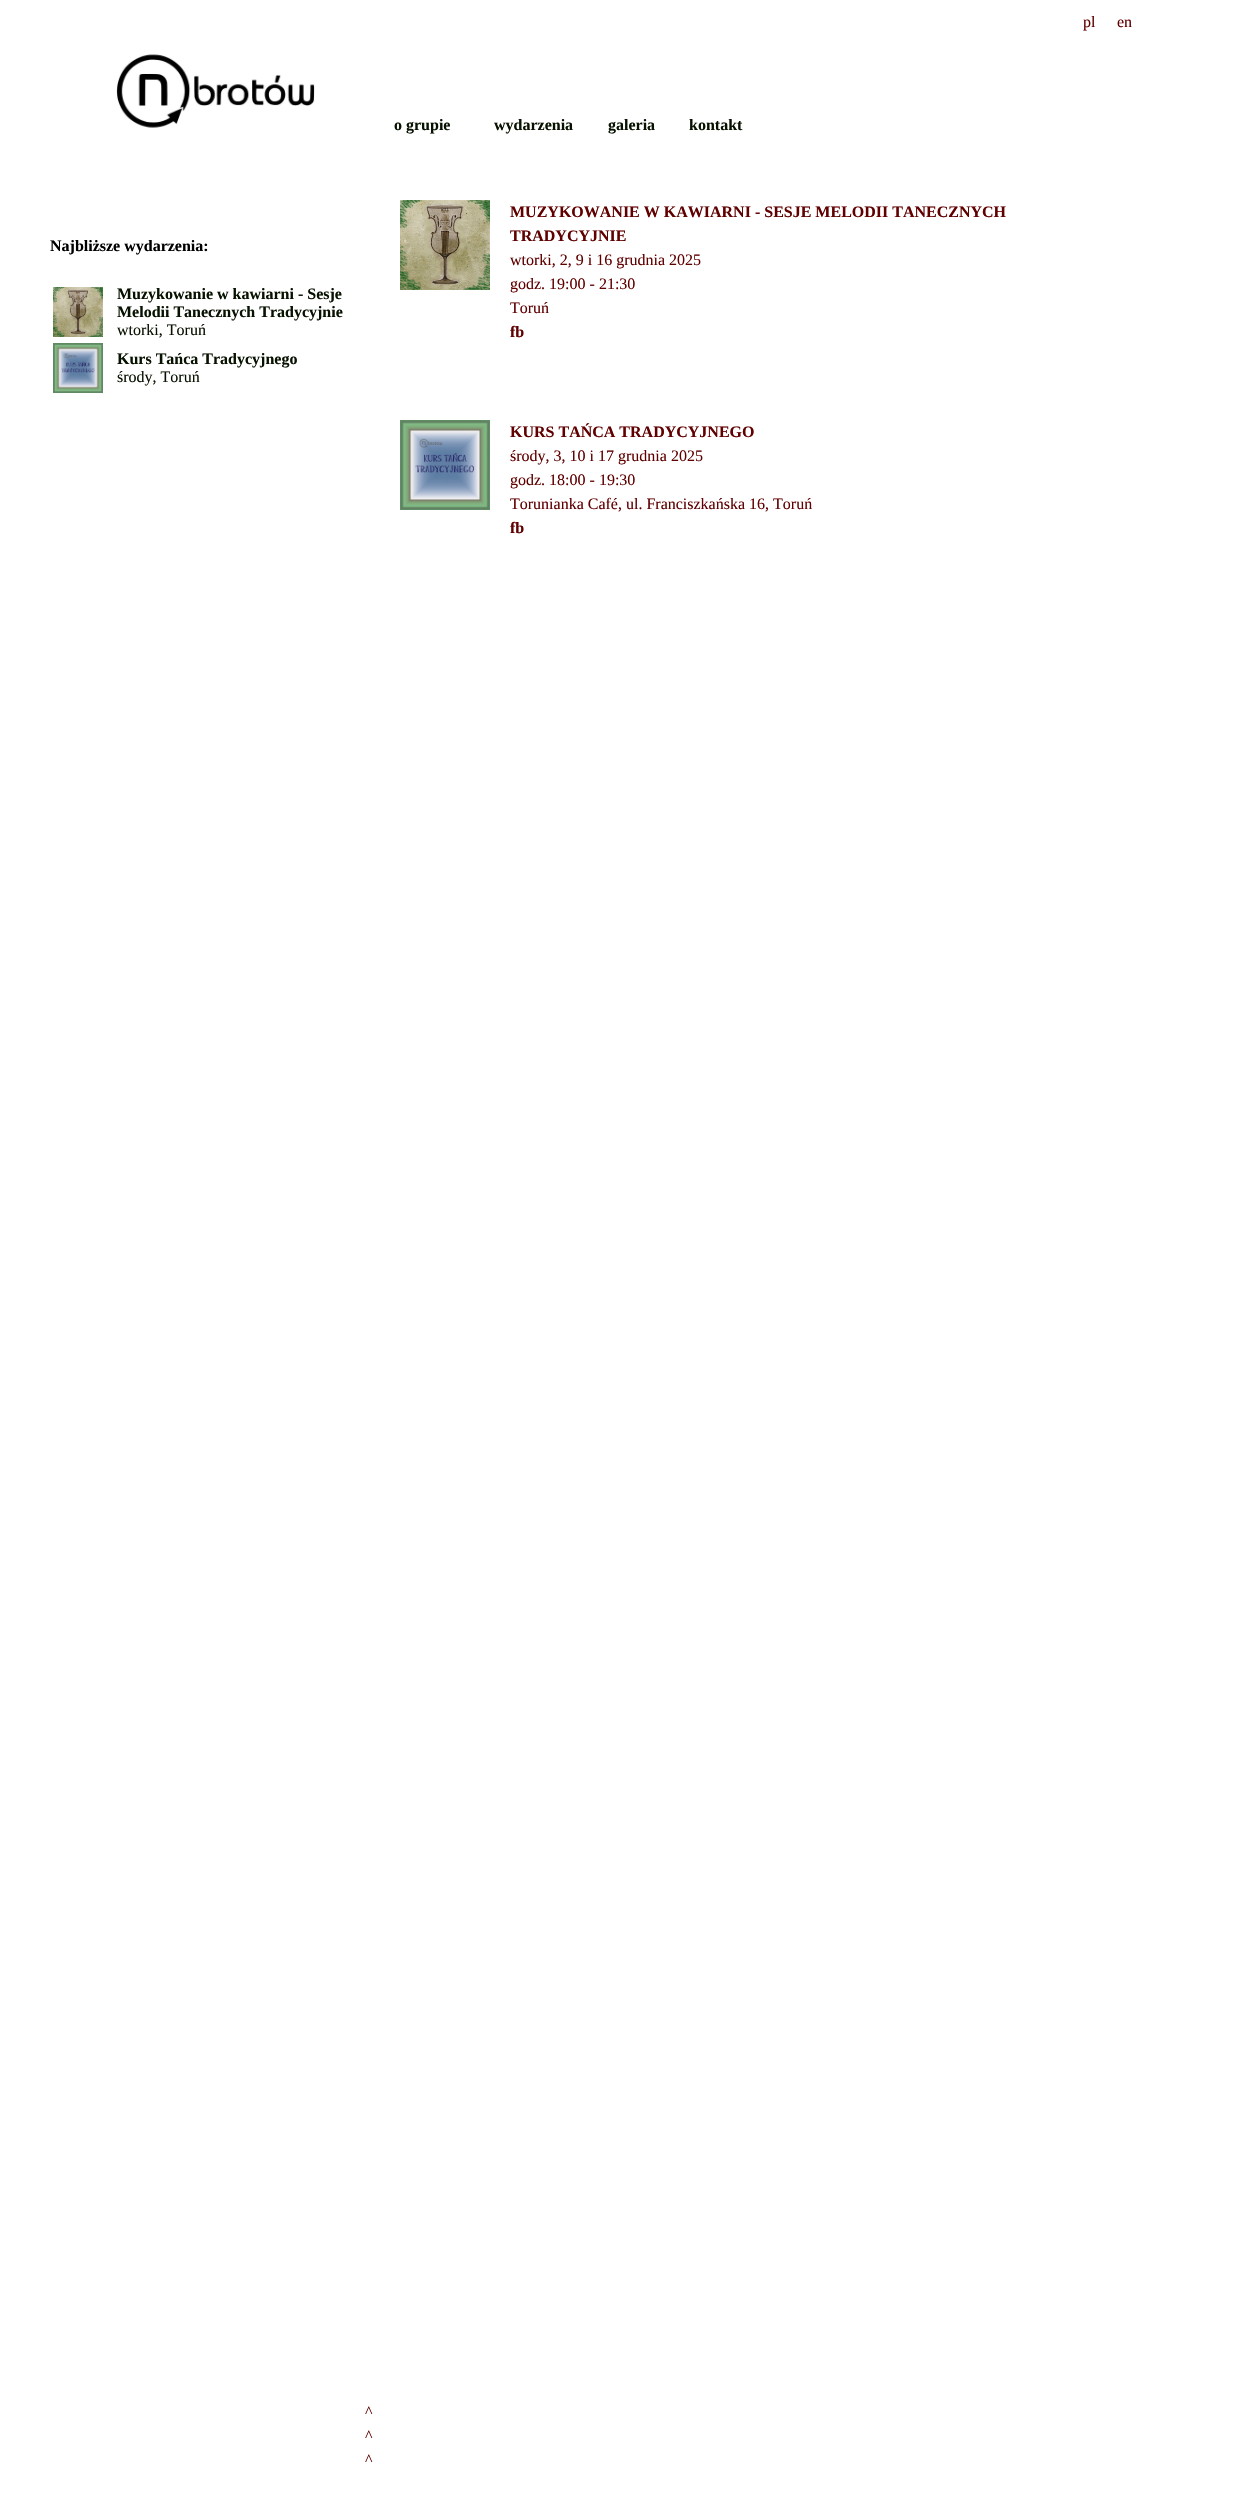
void draw(SkCanvas* canvas) {
	SkPaint paint;
	paint.setAntiAlias(true);
	canvas->clear(0xffffffff);
	SkFont f1(fontMgr->matchFamilyStyle("Liberation Serif", SkFontStyle::Normal()), 16);
	f1.setSubpixel(true);
	paint.setColor(0xff600000);
	canvas->drawString("pl", 1083, 27, f1, paint);
	canvas->drawString("en", 1117, 27, f1, paint);
	canvas->drawImageRect(SkImages::DeferredFromEncodedData(SkData::MakeFromFileName("img1.png")), SkRect::MakeXYWH(116, 54, 199, 74), SkSamplingOptions());
	SkFont f2(fontMgr->matchFamilyStyle("Liberation Serif", SkFontStyle::Bold()), 16);
	f2.setSubpixel(true);
	paint.setColor(0xff081201);
	canvas->drawString("o grupie", 394, 130, f2, paint);
	canvas->drawString("wydarzenia", 494, 130, f2, paint);
	canvas->drawString("galeria", 608, 130, f2, paint);
	canvas->drawString("kontakt", 689, 130, f2, paint);
	paint.setColor(0xff000000);
	canvas->drawString("Najbliższe wydarzenia:", 50, 251, f2, paint);
	canvas->drawImageRect(SkImages::DeferredFromEncodedData(SkData::MakeFromFileName("img2.png")), SkRect::MakeXYWH(53, 287, 50, 50), SkSamplingOptions());
	paint.setColor(0xff081201);
	canvas->drawString("Muzykowanie w kawiarni - Sesje", 117, 299, f2, paint);
	canvas->drawString("Melodii Tanecznych Tradycyjnie", 117, 317, f2, paint);
	canvas->drawString("wtorki, Toruń", 117, 335, f1, paint);
	canvas->drawImageRect(SkImages::DeferredFromEncodedData(SkData::MakeFromFileName("img3.png")), SkRect::MakeXYWH(53, 343, 50, 50), SkSamplingOptions());
	canvas->drawString("Kurs Tańca Tradycyjnego", 117, 364, f2, paint);
	canvas->drawString("środy, Toruń", 117, 382, f1, paint);
	canvas->drawImageRect(SkImages::DeferredFromEncodedData(SkData::MakeFromFileName("img4.png")), SkRect::MakeXYWH(400, 200, 90, 90), SkSamplingOptions());
	paint.setColor(0xff600000);
	canvas->drawString("MUZYKOWANIE W KAWIARNI - SESJE MELODII TANECZNYCH", 510, 217, f2, paint);
	canvas->drawString("TRADYCYJNIE", 510, 241, f2, paint);
	canvas->drawString("wtorki, 2, 9 i 16 grudnia 2025", 510, 265, f1, paint);
	canvas->drawString("godz. 19:00 - 21:30", 510, 289, f1, paint);
	canvas->drawString("Toruń", 510, 313, f1, paint);
	canvas->drawString("fb", 510, 337, f2, paint);
	canvas->drawImageRect(SkImages::DeferredFromEncodedData(SkData::MakeFromFileName("img5.png")), SkRect::MakeXYWH(400, 420, 90, 90), SkSamplingOptions());
	canvas->drawString("KURS TAŃCA TRADYCYJNEGO", 510, 437, f2, paint);
	canvas->drawString("środy, 3, 10 i 17 grudnia 2025", 510, 461, f1, paint);
	canvas->drawString("godz. 18:00 - 19:30", 510, 485, f1, paint);
	canvas->drawString("Torunianka Café, ul. Franciszkańska 16, Toruń", 510, 509, f1, paint);
	canvas->drawString("fb", 510, 533, f2, paint);
	canvas->drawString("^", 365, 2417, f1, paint);
	canvas->drawString("^", 365, 2441, f1, paint);
	canvas->drawString("^", 365, 2465, f1, paint);
}
